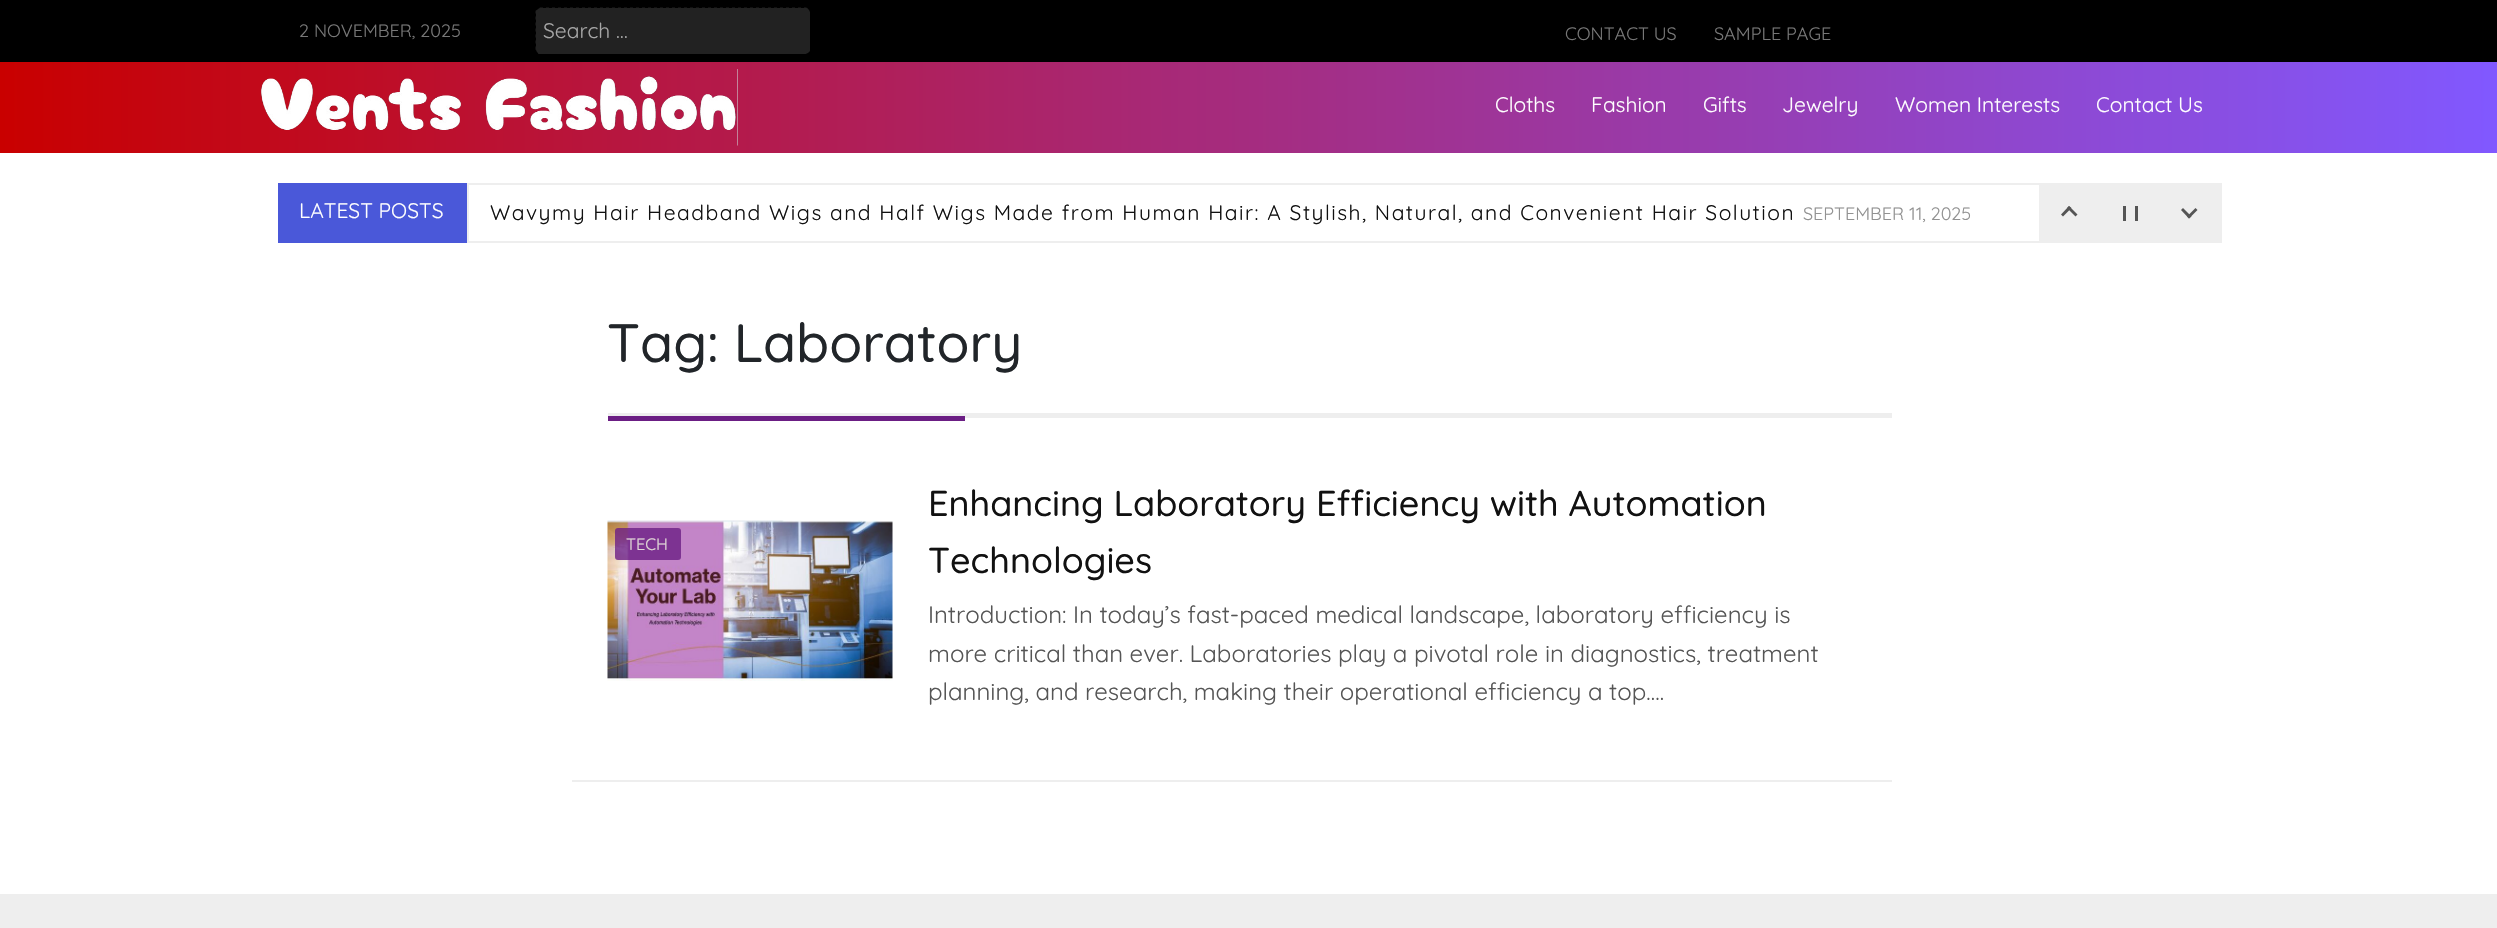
void draw(SkCanvas* canvas) {
	SkPaint paint;
	paint.setAntiAlias(true);
	auto spacedText = [&](const char* s, float x, float y, const SkFont& font, const SkPaint& ink, float letter, float word) {
		std::vector<SkGlyphID> glyphs(font.countText(s, strlen(s), SkTextEncoding::kUTF8));
		std::vector<float> xs(glyphs.size());
		font.textToGlyphs(s, strlen(s), SkTextEncoding::kUTF8, glyphs);
		font.getXPos(glyphs, xs, x);
		float extra = 0;
		for (size_t i = 0; i < glyphs.size(); i++) {
			xs[i] += extra;
			extra += letter + word * (glyphs[i] == font.unicharToGlyph(' '));
		}
		canvas->drawTextBlob(SkTextBlob::MakeFromPosHGlyphs(glyphs, xs, y, font), 0, 0, ink);
	};
	auto svgPath = [&](const char* data, bool evenOdd = false) {
		SkPath result = *SkParsePath::FromSVGString(data);
		if (evenOdd) result.setFillType(SkPathFillType::kEvenOdd);
		return result;
	};
	canvas->clear(0xffffffff);
	paint.setColor(0xff000000);
	canvas->drawRect(SkRect::MakeXYWH(0, 0, 2497, 62), paint);
	SkFont f1(fontMgr->matchFamilyStyle("Quicksand", SkFontStyle::Normal()), 18);
	f1.setSubpixel(true);
	paint.setColor(0xff777777);
	canvas->drawString("2 NOVEMBER, 2025", 299, 37, f1, paint);
	paint.setColor(0xff222222);
	canvas->drawRoundRect(SkRect::MakeXYWH(536, 8, 274, 46), 5, 5, paint);
	paint.setStroke(true);
	paint.setStrokeWidth(3);
	paint.setPathEffect(SkDashPathEffect::Make({{3, 3}}, 0));
	canvas->drawPath(svgPath("M540 9H805.5C807 9 808.5 10.5 808.5 12V49.5C808.5 51 807 52.5 805.5 52.5H540C538.5 52.5 537 51 537 49.5V12C537 10.5 538.5 9 540 9Z"), paint);
	paint.setPathEffect(nullptr);
	SkFont f2(fontMgr->matchFamilyStyle("Quicksand", SkFontStyle::Normal()), 21);
	f2.setSubpixel(true);
	paint.setStroke(false);
	paint.setColor(0xffa7a7a7);
	canvas->drawString("Search …", 543, 38, f2, paint);
	paint.setColor(0xff777777);
	canvas->drawString("CONTACT US", 1565, 40, f1, paint);
	canvas->drawString("SAMPLE PAGE", 1714, 40, f1, paint);
	{
		const SkColor colors[] = {0xffc90000, 0xff8158ff};
		const float stops[] = {0, 1};
		const SkPoint ends[] = {{0, 107}, {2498, 107}};
		paint.setShader(SkGradientShader::MakeLinear(ends, colors, stops, 2, SkTileMode::kClamp));
		paint.setAlpha(255);
	}
	canvas->drawRect(SkRect::MakeXYWH(0, 62, 2497, 91), paint);
	canvas->drawImageRect(SkImages::DeferredFromEncodedData(SkData::MakeFromFileName("img1.png")), SkRect::MakeXYWH(260, 69, 478, 77), SkSamplingOptions());
	paint.setShader(nullptr);
	paint.setColor(0xffffffff);
	canvas->drawString("Cloths", 1495, 112, f2, paint);
	canvas->drawString("Fashion", 1591, 112, f2, paint);
	canvas->drawString("Gifts", 1703, 112, f2, paint);
	canvas->drawString("Jewelry", 1782, 112, f2, paint);
	canvas->drawString("Women Interests", 1895, 112, f2, paint);
	canvas->drawString("Contact Us", 2096, 112, f2, paint);
	paint.setColor(0xff4a58d9);
	canvas->drawRect(SkRect::MakeXYWH(278, 183, 189, 60), paint);
	paint.setColor(0xffffffff);
	canvas->drawString("LATEST POSTS", 299, 218, f2, paint);
	paint.setStroke(true);
	paint.setStrokeWidth(2);
	paint.setColor(0xffeeeeee);
	canvas->drawRect(SkRect::MakeXYWH(468, 184, 1753, 58), paint);
	paint.setStroke(false);
	paint.setColor(0xff111111);
	spacedText("Wavymy Hair Headband Wigs and Half Wigs Made from Human Hair: A Stylish, Natural, and Convenient Hair Solution", 490, 220, f2, paint, 1.5, 0);
	paint.setColor(0xff929292);
	canvas->drawString("SEPTEMBER 11, 2025", 1803, 220, f1, paint);
	paint.setStroke(true);
	paint.setColor(0xffeeeeee);
	canvas->drawRect(SkRect::MakeXYWH(2040, 184, 181, 58), paint);
	paint.setStroke(false);
	canvas->drawRect(SkRect::MakeXYWH(2041, 185, 179, 56), paint);
	paint.setColor(0xff555555);
	canvas->drawPath(svgPath("M2063 216.5L2061 214.5L2069 206L2071.5 208Z"), paint);
	canvas->drawPath(svgPath("M2075.5 216.5L2067 208L2069 206L2077.5 214.5Z"), paint);
	canvas->drawRect(SkRect::MakeXYWH(2135, 206, 3, 15), paint);
	canvas->drawRect(SkRect::MakeXYWH(2123, 206, 3, 15), paint);
	canvas->drawPath(svgPath("M2195.5 208L2197.5 210L2189 218.5L2187 216.5Z"), paint);
	canvas->drawPath(svgPath("M2183 208L2191.5 216.5L2189 218.5L2181 210Z"), paint);
	paint.setColor(0xffeeeeee);
	canvas->drawRect(SkRect::MakeXYWH(608, 413, 1284, 5), paint);
	SkFont f3(fontMgr->matchFamilyStyle("Quicksand", SkFontStyle(500, SkFontStyle::kNormal_Width, SkFontStyle::kUpright_Slant)), 54);
	f3.setSubpixel(true);
	paint.setColor(0xff212529);
	canvas->drawString("Tag: Laboratory", 607, 362, f3, paint);
	paint.setColor(0xff6b1e84);
	canvas->drawRect(SkRect::MakeXYWH(608, 416, 357, 5), paint);
	paint.setColor(0xffeeeeee);
	canvas->drawRect(SkRect::MakeXYWH(572, 780, 1320, 2), paint);
	canvas->drawImageRect(SkImages::DeferredFromEncodedData(SkData::MakeFromFileName("img2.png")), SkRect::MakeXYWH(607, 520, 286, 161), SkSamplingOptions());
	paint.setColor(0xcc6b1e84);
	canvas->drawRoundRect(SkRect::MakeXYWH(615, 528, 66, 32), 3, 3, paint);
	SkFont f4(fontMgr->matchFamilyStyle("Quicksand", SkFontStyle::Normal()), 16.5);
	f4.setSubpixel(true);
	paint.setColor(0xffe0d6d6);
	canvas->drawString("TECH", 626, 550, f4, paint);
	SkFont f5(fontMgr->matchFamilyStyle("Quicksand", SkFontStyle(500, SkFontStyle::kNormal_Width, SkFontStyle::kUpright_Slant)), 36);
	f5.setSubpixel(true);
	paint.setColor(0xff111111);
	canvas->drawString("Enhancing Laboratory Efficiency with Automation", 928, 516, f5, paint);
	canvas->drawString("Technologies", 928, 573, f5, paint);
	SkFont f6(fontMgr->matchFamilyStyle("Quicksand", SkFontStyle::Normal()), 24);
	f6.setSubpixel(true);
	paint.setColor(0xff555555);
	canvas->drawString("Introduction: In today’s fast-paced medical landscape, laboratory efficiency is", 928, 623, f6, paint);
	canvas->drawString("more critical than ever. Laboratories play a pivotal role in diagnostics, treatment", 928, 662, f6, paint);
	canvas->drawString("planning, and research, making their operational efficiency a top….", 928, 700, f6, paint);
	paint.setColor(0xffeeeeee);
	canvas->drawRect(SkRect::MakeXYWH(0, 894, 2497, 34), paint);
}
